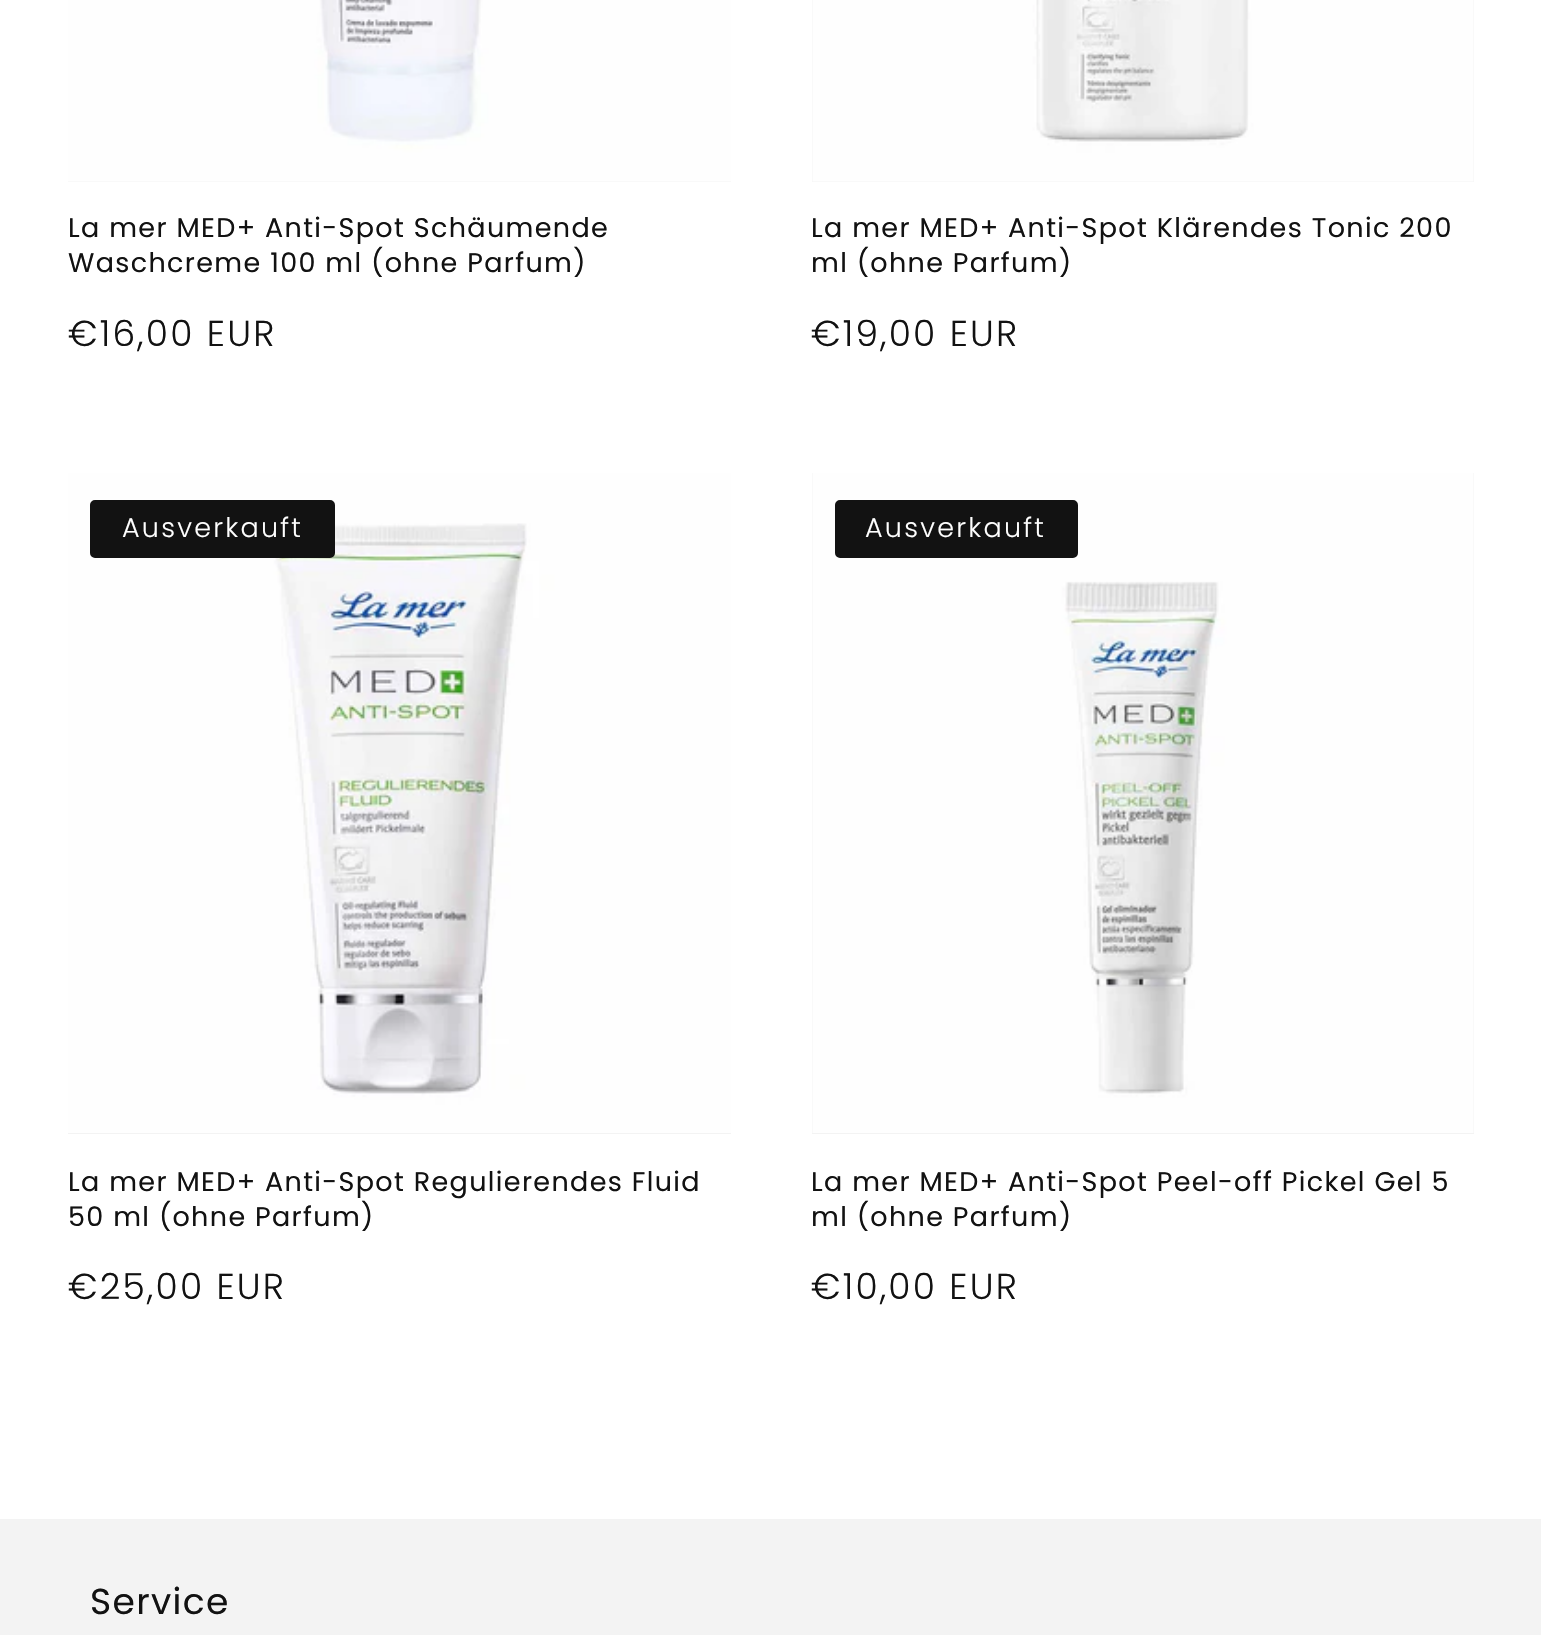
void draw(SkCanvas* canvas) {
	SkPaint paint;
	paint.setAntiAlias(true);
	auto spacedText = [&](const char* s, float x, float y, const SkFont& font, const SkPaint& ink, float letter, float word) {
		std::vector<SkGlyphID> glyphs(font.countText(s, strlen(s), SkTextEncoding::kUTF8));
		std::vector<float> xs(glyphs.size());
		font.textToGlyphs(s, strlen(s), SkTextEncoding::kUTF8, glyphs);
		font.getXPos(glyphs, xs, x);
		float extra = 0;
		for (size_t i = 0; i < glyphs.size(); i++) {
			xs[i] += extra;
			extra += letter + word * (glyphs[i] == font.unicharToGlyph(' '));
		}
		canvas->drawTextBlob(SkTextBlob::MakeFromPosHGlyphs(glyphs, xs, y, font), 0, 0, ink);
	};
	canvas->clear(0xffffffff);
	paint.setColor(0xfff3f3f3);
	canvas->drawRect(SkRect::MakeXYWH(68, 181, 663, 1), paint);
	canvas->drawImageRect(SkImages::DeferredFromEncodedData(SkData::MakeFromFileName("img1.png")), SkRect::MakeXYWH(68, 0, 663, 182), SkSamplingOptions());
	SkFont f1(fontMgr->matchFamilyStyle("Poppins", SkFontStyle::Normal()), 27);
	f1.setSubpixel(true);
	paint.setColor(0xff121212);
	spacedText("La mer MED+ Anti-Spot Schäumende", 68, 237, f1, paint, 1.35, 0);
	spacedText("Waschcreme 100 ml (ohne Parfum)", 68, 272, f1, paint, 1.35, 0);
	SkFont f2(fontMgr->matchFamilyStyle("Poppins", SkFontStyle(300, SkFontStyle::kNormal_Width, SkFontStyle::kUpright_Slant)), 36);
	f2.setSubpixel(true);
	spacedText("€16,00 EUR", 68, 346, f2, paint, 2.25, 0);
	paint.setColor(0xfff3f3f3);
	canvas->drawRect(SkRect::MakeXYWH(812, 0, 662, 182), paint);
	canvas->drawImageRect(SkImages::DeferredFromEncodedData(SkData::MakeFromFileName("img2.png")), SkRect::MakeXYWH(812, 0, 662, 182), SkSamplingOptions());
	paint.setColor(0xff121212);
	spacedText("La mer MED+ Anti-Spot Klärendes Tonic 200", 811, 237, f1, paint, 1.35, 0);
	spacedText("ml (ohne Parfum)", 811, 272, f1, paint, 1.35, 0);
	spacedText("€19,00 EUR", 811, 346, f2, paint, 2.25, 0);
	paint.setColor(0xfff3f3f3);
	canvas->drawRect(SkRect::MakeXYWH(68, 1133, 663, 1), paint);
	canvas->drawImageRect(SkImages::DeferredFromEncodedData(SkData::MakeFromFileName("img3.png")), SkRect::MakeXYWH(68, 473, 663, 660), SkSamplingOptions());
	paint.setColor(0xff121212);
	canvas->drawRoundRect(SkRect::MakeXYWH(91, 501, 243, 56), 4, 4, paint);
	paint.setStroke(true);
	paint.setStrokeWidth(2);
	canvas->drawRoundRect(SkRect::MakeXYWH(91, 501, 243, 56), 4, 4, paint);
	SkFont f3(fontMgr->matchFamilyStyle("Poppins", SkFontStyle(300, SkFontStyle::kNormal_Width, SkFontStyle::kUpright_Slant)), 27);
	f3.setSubpixel(true);
	paint.setStroke(false);
	paint.setColor(0xffffffff);
	spacedText("Ausverkauft", 122, 537, f3, paint, 2.25, 0);
	paint.setColor(0xff121212);
	spacedText("La mer MED+ Anti-Spot Regulierendes Fluid", 68, 1191, f1, paint, 1.35, 0);
	spacedText("50 ml (ohne Parfum)", 68, 1226, f1, paint, 1.35, 0);
	spacedText("€25,00 EUR", 68, 1299, f2, paint, 2.25, 0);
	paint.setColor(0xfff3f3f3);
	canvas->drawRect(SkRect::MakeXYWH(812, 473, 662, 661), paint);
	canvas->drawImageRect(SkImages::DeferredFromEncodedData(SkData::MakeFromFileName("img4.png")), SkRect::MakeXYWH(812, 473, 662, 660), SkSamplingOptions());
	paint.setColor(0xff121212);
	canvas->drawRoundRect(SkRect::MakeXYWH(836, 501, 241, 56), 4, 4, paint);
	paint.setStroke(true);
	canvas->drawRoundRect(SkRect::MakeXYWH(836, 501, 241, 56), 4, 4, paint);
	paint.setStroke(false);
	paint.setColor(0xffffffff);
	spacedText("Ausverkauft", 865, 537, f3, paint, 2.25, 0);
	paint.setColor(0xff121212);
	spacedText("La mer MED+ Anti-Spot Peel-off Pickel Gel 5", 811, 1191, f1, paint, 1.35, 0);
	spacedText("ml (ohne Parfum)", 811, 1226, f1, paint, 1.35, 0);
	spacedText("€10,00 EUR", 811, 1299, f2, paint, 2.25, 0);
	paint.setColor(0xfff3f3f3);
	canvas->drawRect(SkRect::MakeXYWH(0, 1519, 1541, 116), paint);
	SkFont f4(fontMgr->matchFamilyStyle("Poppins", SkFontStyle::Normal()), 36);
	f4.setSubpixel(true);
	paint.setColor(0xff121212);
	spacedText("Service", 90, 1614, f4, paint, 1.35, 0);
}
